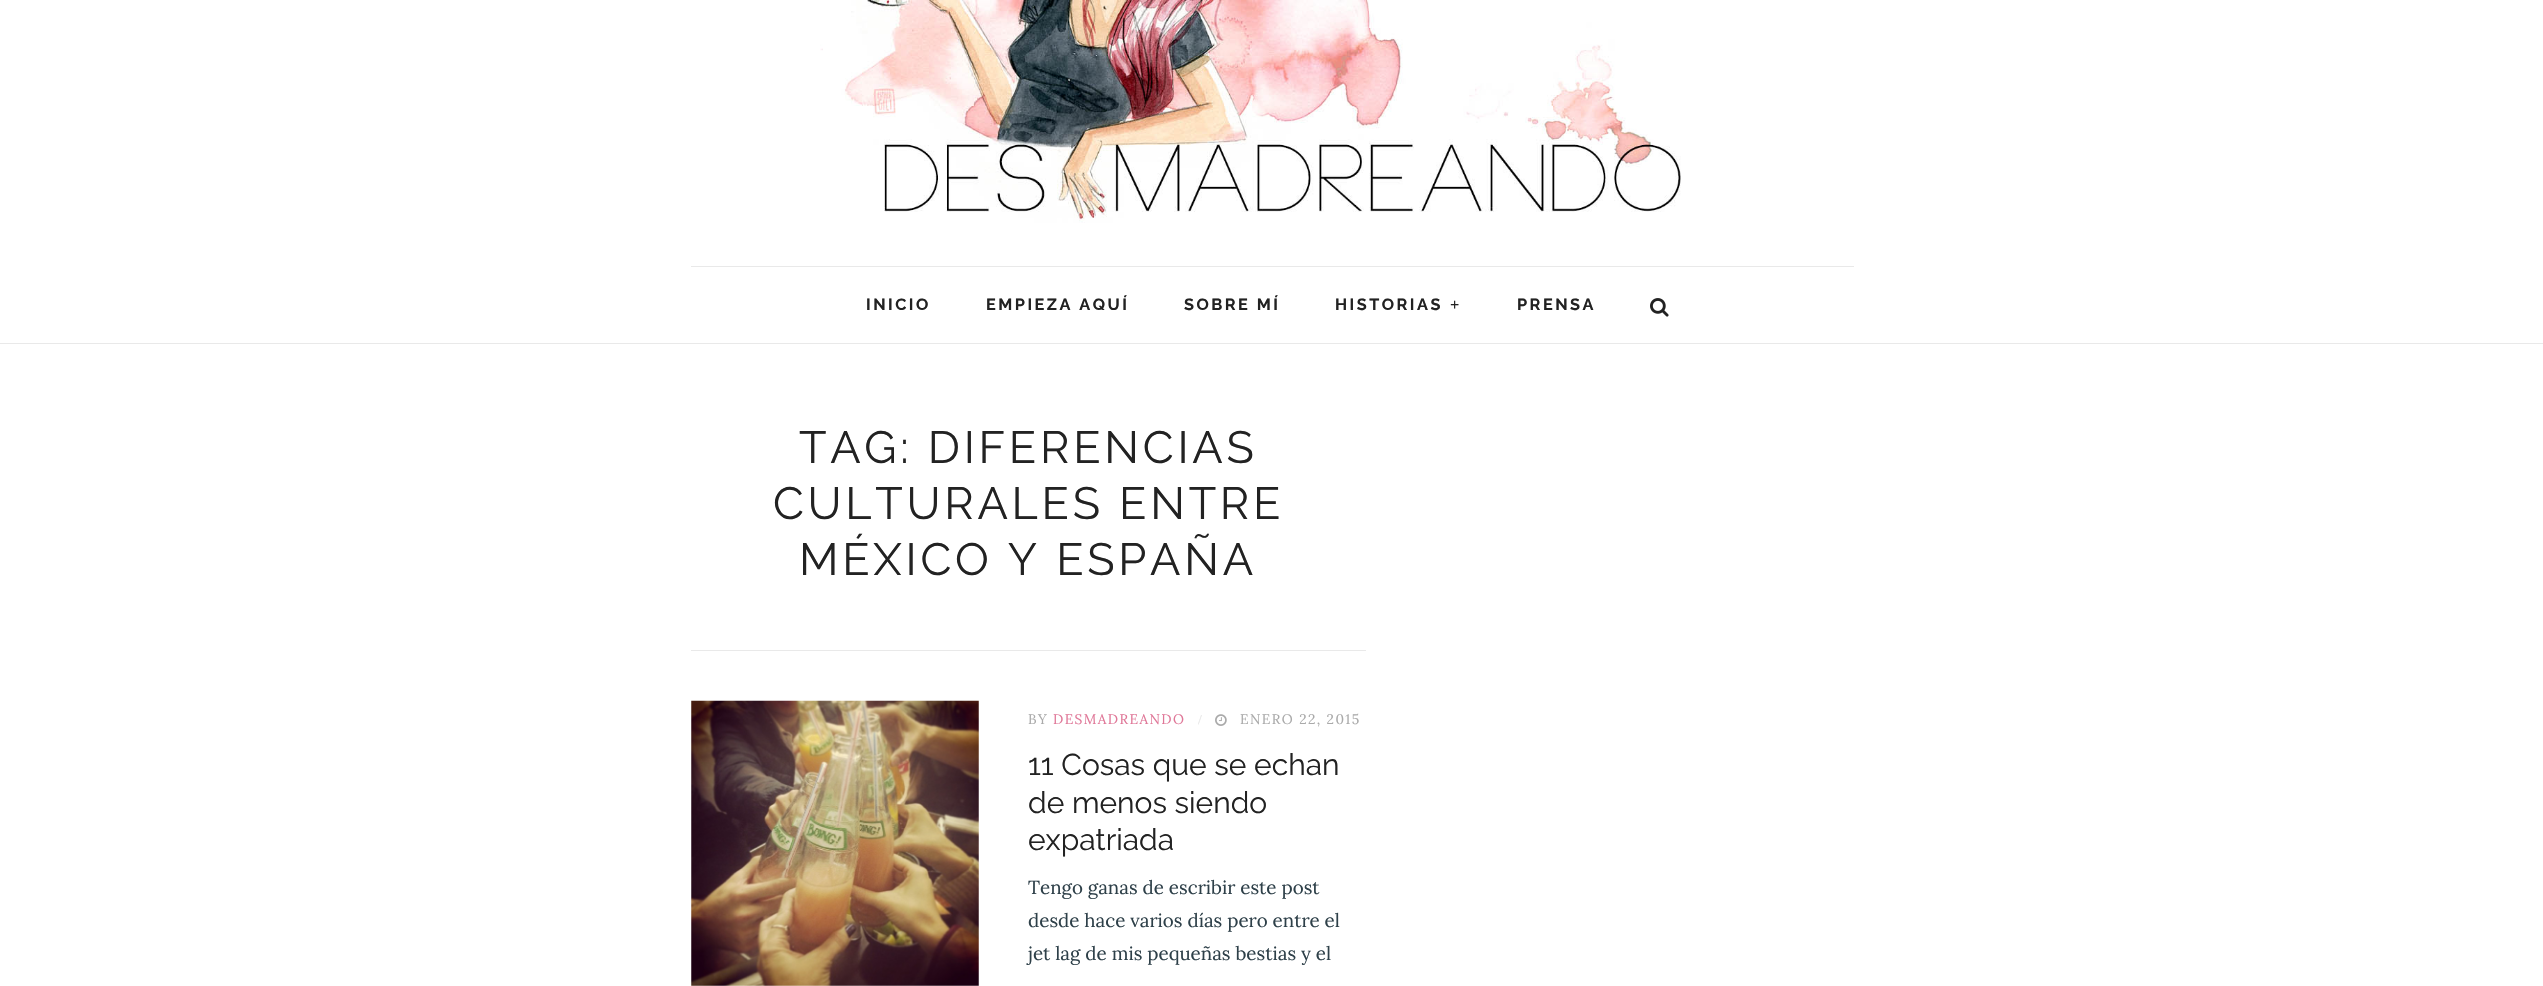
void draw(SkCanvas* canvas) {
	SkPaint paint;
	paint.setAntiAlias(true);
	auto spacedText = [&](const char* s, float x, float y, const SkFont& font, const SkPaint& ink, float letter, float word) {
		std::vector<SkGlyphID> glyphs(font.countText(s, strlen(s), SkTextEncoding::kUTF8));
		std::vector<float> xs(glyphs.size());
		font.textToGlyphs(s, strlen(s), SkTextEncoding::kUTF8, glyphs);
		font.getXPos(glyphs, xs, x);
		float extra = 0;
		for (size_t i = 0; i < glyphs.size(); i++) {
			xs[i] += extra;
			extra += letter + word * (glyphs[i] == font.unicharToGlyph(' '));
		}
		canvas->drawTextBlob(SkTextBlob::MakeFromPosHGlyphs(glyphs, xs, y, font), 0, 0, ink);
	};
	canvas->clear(0xffffffff);
	canvas->drawImageRect(SkImages::DeferredFromEncodedData(SkData::MakeFromFileName("img1.png")), SkRect::MakeXYWH(820, 0, 861, 223), SkSamplingOptions());
	paint.setColor(0xffe9e9e9);
	canvas->drawRect(SkRect::MakeXYWH(691, 266, 1163, 1), paint);
	SkFont f1(fontMgr->matchFamilyStyle("Raleway", SkFontStyle::Bold()), 16.25);
	f1.setSubpixel(true);
	paint.setColor(0xff222222);
	spacedText("INICIO", 866, 310, f1, paint, 2.5, 0);
	spacedText("EMPIEZA AQUÍ", 986, 310, f1, paint, 2.5, 0);
	spacedText("SOBRE MÍ", 1184, 310, f1, paint, 2.5, 0);
	spacedText("HISTORIAS", 1335, 310, f1, paint, 2.5, 0);
	SkFont f2(fontMgr->matchFamilyStyle("Liberation Serif", SkFontStyle::Bold()), 16.25);
	f2.setSubpixel(true);
	spacedText("+", 1450, 310, f2, paint, 2.5, 0);
	spacedText("PRENSA", 1517, 310, f1, paint, 2.5, 0);
	canvas->drawImageRect(SkImages::DeferredFromEncodedData(SkData::MakeFromFileName("img2.png")), SkRect::MakeXYWH(1650, 298, 19, 19), SkSamplingOptions());
	paint.setColor(0xffe9e9e9);
	canvas->drawRect(SkRect::MakeXYWH(0, 343, 2543, 1), paint);
	canvas->drawRect(SkRect::MakeXYWH(691, 650, 675, 1), paint);
	SkFont f3(fontMgr->matchFamilyStyle("Raleway", SkFontStyle::Normal()), 45);
	f3.setSubpixel(true);
	paint.setColor(0xff222222);
	spacedText("TAG: DIFERENCIAS", 799, 463, f3, paint, 3.75, 0);
	spacedText("CULTURALES ENTRE", 773, 519, f3, paint, 3.75, 0);
	spacedText("MÉXICO Y ESPAÑA", 799, 575, f3, paint, 3.75, 0);
	canvas->drawImageRect(SkImages::DeferredFromEncodedData(SkData::MakeFromFileName("img3.png")), SkRect::MakeXYWH(691, 700, 288, 286), SkSamplingOptions());
	SkFont f4(fontMgr->matchFamilyStyle("Lora", SkFontStyle::Normal()), 13.75);
	f4.setSubpixel(true);
	paint.setColor(0xffaaaaaa);
	spacedText("BY", 1028, 724, f4, paint, 1.4, 0);
	paint.setColor(0xffe07798);
	spacedText("DESMADREANDO", 1053, 724, f4, paint, 1.4, 0);
	SkFont f5(fontMgr->matchFamilyStyle("Liberation Serif", SkFontStyle::Normal()), 13.75);
	f5.setSubpixel(true);
	paint.setColor(0xffe6e6e6);
	spacedText("/", 1198, 724, f5, paint, 1.4, 0);
	canvas->drawImageRect(SkImages::DeferredFromEncodedData(SkData::MakeFromFileName("img4.png")), SkRect::MakeXYWH(1215, 714, 12, 12), SkSamplingOptions());
	paint.setColor(0xffaaaaaa);
	spacedText("ENERO 22, 2015", 1240, 724, f4, paint, 1.4, 0);
	SkFont f6(fontMgr->matchFamilyStyle("Raleway", SkFontStyle::Normal()), 30);
	f6.setSubpixel(true);
	paint.setColor(0xff222222);
	canvas->drawString("11 Cosas que se echan", 1028, 775, f6, paint);
	canvas->drawString("de menos siendo", 1028, 813, f6, paint);
	canvas->drawString("expatriada", 1028, 850, f6, paint);
	SkFont f7(fontMgr->matchFamilyStyle("Lora", SkFontStyle::Normal()), 18.75);
	f7.setSubpixel(true);
	paint.setColor(0xff2e4049);
	canvas->drawString("Tengo ganas de escribir este post", 1028, 894, f7, paint);
	canvas->drawString("desde hace varios días pero entre el", 1028, 927, f7, paint);
	canvas->drawString("jet lag de mis pequeñas bestias y el", 1028, 960, f7, paint);
}
